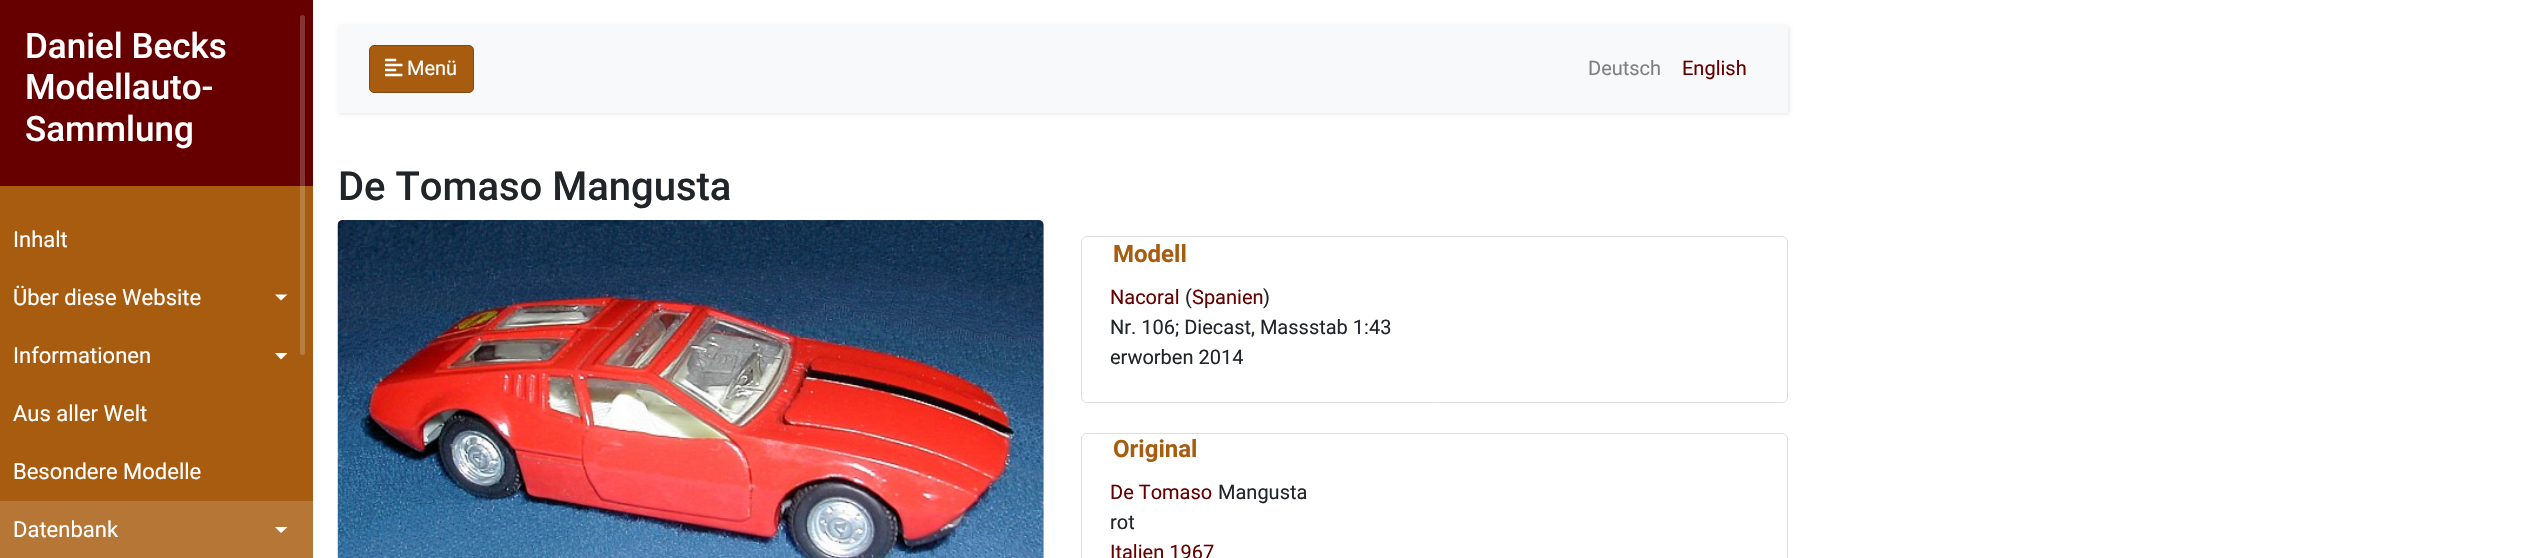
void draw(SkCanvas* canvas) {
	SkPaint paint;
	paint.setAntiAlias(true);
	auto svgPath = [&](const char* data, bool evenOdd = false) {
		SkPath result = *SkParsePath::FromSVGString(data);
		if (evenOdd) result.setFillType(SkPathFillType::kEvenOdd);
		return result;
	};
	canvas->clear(0xffffffff);
	paint.setColor(0xffa75c10);
	canvas->drawRect(SkRect::MakeXYWH(0, 186, 313, 315), paint);
	paint.setColor(0xff660000);
	canvas->drawRect(SkRect::MakeXYWH(0, 0, 313, 186), paint);
	SkFont f1(fontMgr->matchFamilyStyle("Roboto", SkFontStyle(500, SkFontStyle::kNormal_Width, SkFontStyle::kUpright_Slant)), 35);
	f1.setSubpixel(true);
	paint.setColor(0xffffffff);
	canvas->drawString("Daniel Becks", 25, 58, f1, paint);
	canvas->drawString("Modellauto-", 25, 99, f1, paint);
	canvas->drawString("Sammlung", 25, 141, f1, paint);
	SkFont f2(fontMgr->matchFamilyStyle("Roboto", SkFontStyle::Normal()), 22);
	f2.setSubpixel(true);
	canvas->drawString("Inhalt", 13, 247, f2, paint);
	canvas->drawString("Über diese Website", 13, 305, f2, paint);
	canvas->drawPath(svgPath("M275 294.5H287.5L281 300.5Z"), paint);
	canvas->drawString("Informationen", 13, 363, f2, paint);
	canvas->drawPath(svgPath("M275 353H287.5L281 359.5Z"), paint);
	canvas->drawString("Aus aller Welt", 13, 421, f2, paint);
	canvas->drawString("Besondere Modelle", 13, 479, f2, paint);
	paint.setColor(0xffb57636);
	canvas->drawRect(SkRect::MakeXYWH(0, 501, 313, 57), paint);
	paint.setColor(0xffffffff);
	canvas->drawString("Datenbank", 13, 537, f2, paint);
	canvas->drawPath(svgPath("M275 527H287.5L281 533Z"), paint);
	paint.setColor(0x33ffffff);
	canvas->drawRoundRect(SkRect::MakeXYWH(300, 15, 5, 340), 2.5, 2.5, paint);
	paint.setColor(0x1a000000);
	paint.setMaskFilter(SkMaskFilter::MakeBlur(kNormal_SkBlurStyle, 2));
	canvas->drawRect(SkRect::MakeXYWH(339, 26, 1450, 88), paint);
	paint.setMaskFilter(nullptr);
	paint.setColor(0xfff8f9fa);
	canvas->drawRect(SkRect::MakeXYWH(338, 25, 1450, 88), paint);
	paint.setColor(0xffa75c10);
	canvas->drawRoundRect(SkRect::MakeXYWH(369.5, 45.5, 104, 47), 4.5, 4.5, paint);
	paint.setStroke(true);
	paint.setStrokeWidth(1);
	paint.setColor(0xff824910);
	canvas->drawRoundRect(SkRect::MakeXYWH(369.5, 45.5, 104, 47), 4.5, 4.5, paint);
	canvas->drawImageRect(SkImages::DeferredFromEncodedData(SkData::MakeFromFileName("img1.png")), SkRect::MakeXYWH(385, 58, 18, 19), SkSamplingOptions());
	SkFont f3(fontMgr->matchFamilyStyle("Roboto", SkFontStyle::Normal()), 20);
	f3.setSubpixel(true);
	paint.setStroke(false);
	paint.setColor(0xffffffff);
	canvas->drawString("Menü", 407, 75, f3, paint);
	paint.setColor(0xff808080);
	canvas->drawString("Deutsch", 1588, 75, f3, paint);
	paint.setColor(0xff660000);
	canvas->drawString("English", 1682, 75, f3, paint);
	SkFont f4(fontMgr->matchFamilyStyle("Roboto", SkFontStyle(500, SkFontStyle::kNormal_Width, SkFontStyle::kUpright_Slant)), 40);
	f4.setSubpixel(true);
	paint.setColor(0xff212529);
	canvas->drawString("De Tomaso Mangusta", 338, 200, f4, paint);
	canvas->drawImageRect(SkImages::DeferredFromEncodedData(SkData::MakeFromFileName("img2.png")), SkRect::MakeXYWH(337, 220, 707, 338), SkSamplingOptions());
	paint.setStroke(true);
	paint.setColor(0xffdddddd);
	canvas->drawRoundRect(SkRect::MakeXYWH(1081.5, 236.5, 706, 166), 5.5, 5.5, paint);
	SkFont f5(fontMgr->matchFamilyStyle("Roboto", SkFontStyle::Bold()), 24);
	f5.setSubpixel(true);
	paint.setStroke(false);
	paint.setColor(0xffa75c10);
	canvas->drawString("Modell", 1113, 262, f5, paint);
	paint.setColor(0xff660000);
	canvas->drawString("Nacoral", 1110, 304, f3, paint);
	paint.setColor(0xff212529);
	canvas->drawString("(", 1185, 304, f3, paint);
	paint.setColor(0xff660000);
	canvas->drawString("Spanien", 1192, 304, f3, paint);
	paint.setColor(0xff212529);
	canvas->drawString(")", 1263, 304, f3, paint);
	canvas->drawString("Nr. 106; Diecast, Massstab 1:43", 1110, 334, f3, paint);
	canvas->drawString("erworben 2014", 1110, 364, f3, paint);
	paint.setStroke(true);
	paint.setColor(0xffdddddd);
	canvas->drawRoundRect(SkRect::MakeXYWH(1081.5, 433.5, 706, 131), 5.5, 5.5, paint);
	paint.setStroke(false);
	paint.setColor(0xffa75c10);
	canvas->drawString("Original", 1113, 457, f5, paint);
	paint.setColor(0xff660000);
	canvas->drawString("De Tomaso", 1110, 499, f3, paint);
	paint.setColor(0xff212529);
	canvas->drawString("Mangusta", 1218, 499, f3, paint);
	canvas->drawString("rot", 1110, 529, f3, paint);
	paint.setColor(0xff660000);
	canvas->drawString("Italien 1967", 1110, 559, f3, paint);
}
